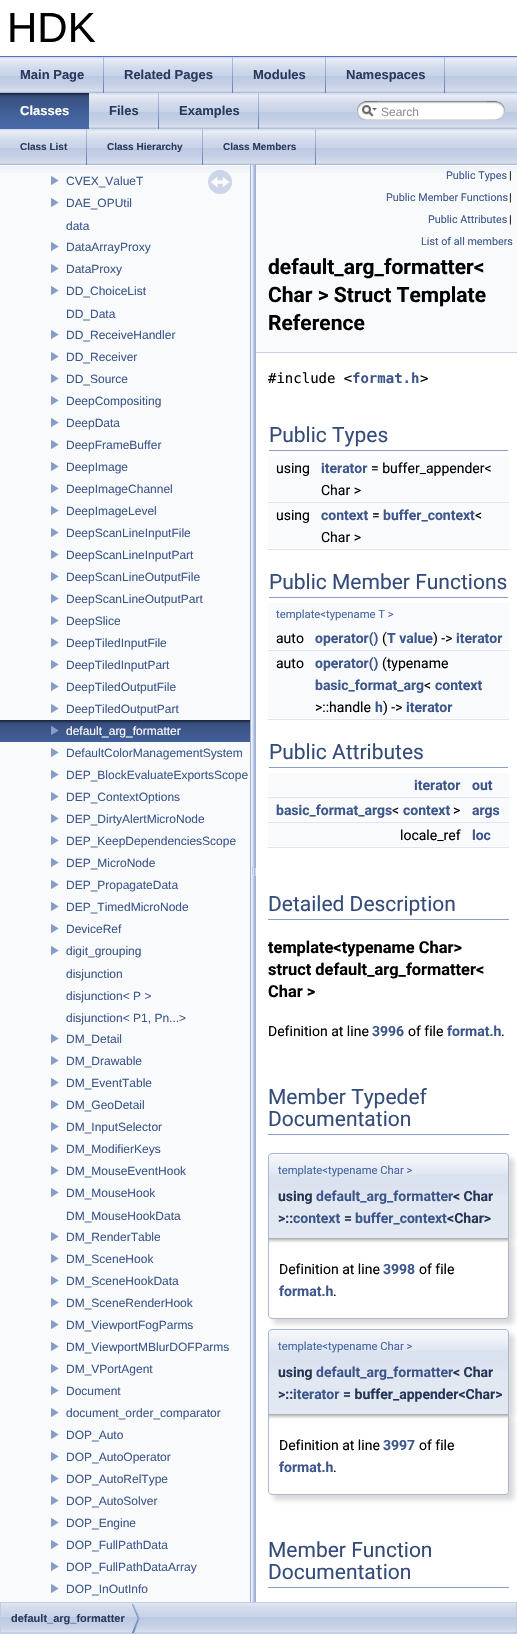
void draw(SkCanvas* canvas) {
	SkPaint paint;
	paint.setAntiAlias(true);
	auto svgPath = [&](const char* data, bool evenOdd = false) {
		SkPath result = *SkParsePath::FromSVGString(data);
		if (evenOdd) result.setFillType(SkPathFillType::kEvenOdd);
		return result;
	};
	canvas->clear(0xffffffff);
	paint.setColor(0xff5373b4);
	canvas->drawRect(SkRect::MakeXYWH(0, 56, 517, 1), paint);
	SkFont f1(fontMgr->matchFamilyStyle("Liberation Sans", SkFontStyle::Normal()), 42);
	f1.setSubpixel(true);
	paint.setColor(0xff000000);
	canvas->drawString("HDK", 7, 42, f1, paint);
	canvas->drawImageRect(SkImages::DeferredFromEncodedData(SkData::MakeFromFileName("img1.png")), SkRect::MakeXYWH(0, 57, 517, 72), SkSamplingOptions());
	canvas->drawImageRect(SkImages::DeferredFromEncodedData(SkData::MakeFromFileName("img2.png")), SkRect::MakeXYWH(103, 57, 1, 36), SkSamplingOptions());
	SkFont f2(fontMgr->matchFamilyStyle("Liberation Sans", SkFontStyle::Bold()), 13);
	f2.setSubpixel(true);
	paint.setColor(0xff283a5d);
	canvas->drawString("Main Page", 20, 79, f2, paint);
	canvas->drawImageRect(SkImages::DeferredFromEncodedData(SkData::MakeFromFileName("img2.png")), SkRect::MakeXYWH(232, 57, 1, 36), SkSamplingOptions());
	canvas->drawString("Related Pages", 124, 79, f2, paint);
	canvas->drawImageRect(SkImages::DeferredFromEncodedData(SkData::MakeFromFileName("img2.png")), SkRect::MakeXYWH(325, 57, 1, 36), SkSamplingOptions());
	canvas->drawString("Modules", 253, 79, f2, paint);
	canvas->drawImageRect(SkImages::DeferredFromEncodedData(SkData::MakeFromFileName("img2.png")), SkRect::MakeXYWH(444, 57, 1, 36), SkSamplingOptions());
	canvas->drawString("Namespaces", 346, 79, f2, paint);
	canvas->drawImageRect(SkImages::DeferredFromEncodedData(SkData::MakeFromFileName("img3.png")), SkRect::MakeXYWH(0, 93, 89, 36), SkSamplingOptions());
	paint.setColor(0xffffffff);
	canvas->drawString("Classes", 20, 115, f2, paint);
	canvas->drawImageRect(SkImages::DeferredFromEncodedData(SkData::MakeFromFileName("img2.png")), SkRect::MakeXYWH(158, 93, 1, 36), SkSamplingOptions());
	paint.setColor(0xff283a5d);
	canvas->drawString("Files", 109, 115, f2, paint);
	canvas->drawImageRect(SkImages::DeferredFromEncodedData(SkData::MakeFromFileName("img2.png")), SkRect::MakeXYWH(258, 93, 1, 36), SkSamplingOptions());
	canvas->drawString("Examples", 179, 115, f2, paint);
	canvas->drawImageRect(SkImages::DeferredFromEncodedData(SkData::MakeFromFileName("img4.png")), SkRect::MakeXYWH(357, 101, 20, 19), SkSamplingOptions());
	canvas->drawImageRect(SkImages::DeferredFromEncodedData(SkData::MakeFromFileName("img5.png")), SkRect::MakeXYWH(362, 105, 15, 12), SkSamplingOptions());
	canvas->drawImageRect(SkImages::DeferredFromEncodedData(SkData::MakeFromFileName("img6.png")), SkRect::MakeXYWH(377, 101, 110, 19), SkSamplingOptions());
	SkFont f3(fontMgr->matchFamilyStyle("Liberation Sans", SkFontStyle::Normal()), 12);
	f3.setSubpixel(true);
	paint.setColor(0xff909090);
	canvas->drawString("Search", 381, 116, f3, paint);
	canvas->drawImageRect(SkImages::DeferredFromEncodedData(SkData::MakeFromFileName("img7.png")), SkRect::MakeXYWH(487, 101, 18, 19), SkSamplingOptions());
	canvas->drawImageRect(SkImages::DeferredFromEncodedData(SkData::MakeFromFileName("img8.png")), SkRect::MakeXYWH(0, 129, 517, 36), SkSamplingOptions());
	canvas->drawImageRect(SkImages::DeferredFromEncodedData(SkData::MakeFromFileName("img2.png")), SkRect::MakeXYWH(86, 129, 1, 36), SkSamplingOptions());
	SkFont f4(fontMgr->matchFamilyStyle("Liberation Sans", SkFontStyle::Bold()), 10);
	f4.setSubpixel(true);
	paint.setColor(0xff283a5d);
	canvas->drawString("Class List", 20, 150, f4, paint);
	canvas->drawImageRect(SkImages::DeferredFromEncodedData(SkData::MakeFromFileName("img2.png")), SkRect::MakeXYWH(202, 129, 1, 36), SkSamplingOptions());
	canvas->drawString("Class Hierarchy", 107, 150, f4, paint);
	canvas->drawImageRect(SkImages::DeferredFromEncodedData(SkData::MakeFromFileName("img2.png")), SkRect::MakeXYWH(315, 129, 1, 36), SkSamplingOptions());
	canvas->drawString("Class Members", 223, 150, f4, paint);
	paint.setColor(0xfff9fafc);
	canvas->drawRect(SkRect::MakeXYWH(0, 173, 250, 1429), paint);
	canvas->drawImageRect(SkImages::DeferredFromEncodedData(SkData::MakeFromFileName("img9.png")), SkRect::MakeXYWH(0, 165, 250, 8), SkSamplingOptions());
	canvas->drawImageRect(SkImages::DeferredFromEncodedData(SkData::MakeFromFileName("img10.png")), SkRect::MakeXYWH(208, 170, 24, 24), SkSamplingOptions());
	canvas->drawImageRect(SkImages::DeferredFromEncodedData(SkData::MakeFromFileName("img11.png")), SkRect::MakeXYWH(51, 176, 8, 9), SkSamplingOptions());
	paint.setColor(0xff3d578c);
	canvas->drawString("CVEX_ValueT", 66, 185, f3, paint);
	canvas->drawImageRect(SkImages::DeferredFromEncodedData(SkData::MakeFromFileName("img11.png")), SkRect::MakeXYWH(51, 198, 8, 9), SkSamplingOptions());
	canvas->drawString("DAE_OPUtil", 66, 207, f3, paint);
	canvas->drawString("data", 66, 230, f3, paint);
	canvas->drawImageRect(SkImages::DeferredFromEncodedData(SkData::MakeFromFileName("img11.png")), SkRect::MakeXYWH(51, 242, 8, 9), SkSamplingOptions());
	canvas->drawString("DataArrayProxy", 66, 251, f3, paint);
	canvas->drawImageRect(SkImages::DeferredFromEncodedData(SkData::MakeFromFileName("img11.png")), SkRect::MakeXYWH(51, 264, 8, 9), SkSamplingOptions());
	canvas->drawString("DataProxy", 66, 273, f3, paint);
	canvas->drawImageRect(SkImages::DeferredFromEncodedData(SkData::MakeFromFileName("img11.png")), SkRect::MakeXYWH(51, 286, 8, 9), SkSamplingOptions());
	canvas->drawString("DD_ChoiceList", 66, 295, f3, paint);
	canvas->drawString("DD_Data", 66, 318, f3, paint);
	canvas->drawImageRect(SkImages::DeferredFromEncodedData(SkData::MakeFromFileName("img11.png")), SkRect::MakeXYWH(51, 330, 8, 9), SkSamplingOptions());
	canvas->drawString("DD_ReceiveHandler", 66, 339, f3, paint);
	canvas->drawImageRect(SkImages::DeferredFromEncodedData(SkData::MakeFromFileName("img11.png")), SkRect::MakeXYWH(51, 352, 8, 9), SkSamplingOptions());
	canvas->drawString("DD_Receiver", 66, 361, f3, paint);
	canvas->drawImageRect(SkImages::DeferredFromEncodedData(SkData::MakeFromFileName("img11.png")), SkRect::MakeXYWH(51, 374, 8, 9), SkSamplingOptions());
	canvas->drawString("DD_Source", 66, 383, f3, paint);
	canvas->drawImageRect(SkImages::DeferredFromEncodedData(SkData::MakeFromFileName("img11.png")), SkRect::MakeXYWH(51, 396, 8, 9), SkSamplingOptions());
	canvas->drawString("DeepCompositing", 66, 405, f3, paint);
	canvas->drawImageRect(SkImages::DeferredFromEncodedData(SkData::MakeFromFileName("img11.png")), SkRect::MakeXYWH(51, 418, 8, 9), SkSamplingOptions());
	canvas->drawString("DeepData", 66, 427, f3, paint);
	canvas->drawImageRect(SkImages::DeferredFromEncodedData(SkData::MakeFromFileName("img11.png")), SkRect::MakeXYWH(51, 440, 8, 9), SkSamplingOptions());
	canvas->drawString("DeepFrameBuffer", 66, 449, f3, paint);
	canvas->drawImageRect(SkImages::DeferredFromEncodedData(SkData::MakeFromFileName("img11.png")), SkRect::MakeXYWH(51, 462, 8, 9), SkSamplingOptions());
	canvas->drawString("DeepImage", 66, 471, f3, paint);
	canvas->drawImageRect(SkImages::DeferredFromEncodedData(SkData::MakeFromFileName("img11.png")), SkRect::MakeXYWH(51, 484, 8, 9), SkSamplingOptions());
	canvas->drawString("DeepImageChannel", 66, 493, f3, paint);
	canvas->drawImageRect(SkImages::DeferredFromEncodedData(SkData::MakeFromFileName("img11.png")), SkRect::MakeXYWH(51, 506, 8, 9), SkSamplingOptions());
	canvas->drawString("DeepImageLevel", 66, 515, f3, paint);
	canvas->drawImageRect(SkImages::DeferredFromEncodedData(SkData::MakeFromFileName("img11.png")), SkRect::MakeXYWH(51, 528, 8, 9), SkSamplingOptions());
	canvas->drawString("DeepScanLineInputFile", 66, 537, f3, paint);
	canvas->drawImageRect(SkImages::DeferredFromEncodedData(SkData::MakeFromFileName("img11.png")), SkRect::MakeXYWH(51, 550, 8, 9), SkSamplingOptions());
	canvas->drawString("DeepScanLineInputPart", 66, 559, f3, paint);
	canvas->drawImageRect(SkImages::DeferredFromEncodedData(SkData::MakeFromFileName("img11.png")), SkRect::MakeXYWH(51, 572, 8, 9), SkSamplingOptions());
	canvas->drawString("DeepScanLineOutputFile", 66, 581, f3, paint);
	canvas->drawImageRect(SkImages::DeferredFromEncodedData(SkData::MakeFromFileName("img11.png")), SkRect::MakeXYWH(51, 594, 8, 9), SkSamplingOptions());
	canvas->drawString("DeepScanLineOutputPart", 66, 603, f3, paint);
	canvas->drawImageRect(SkImages::DeferredFromEncodedData(SkData::MakeFromFileName("img11.png")), SkRect::MakeXYWH(51, 616, 8, 9), SkSamplingOptions());
	canvas->drawString("DeepSlice", 66, 625, f3, paint);
	canvas->drawImageRect(SkImages::DeferredFromEncodedData(SkData::MakeFromFileName("img11.png")), SkRect::MakeXYWH(51, 638, 8, 9), SkSamplingOptions());
	canvas->drawString("DeepTiledInputFile", 66, 647, f3, paint);
	canvas->drawImageRect(SkImages::DeferredFromEncodedData(SkData::MakeFromFileName("img11.png")), SkRect::MakeXYWH(51, 660, 8, 9), SkSamplingOptions());
	canvas->drawString("DeepTiledInputPart", 66, 669, f3, paint);
	canvas->drawImageRect(SkImages::DeferredFromEncodedData(SkData::MakeFromFileName("img11.png")), SkRect::MakeXYWH(51, 682, 8, 9), SkSamplingOptions());
	canvas->drawString("DeepTiledOutputFile", 66, 691, f3, paint);
	canvas->drawImageRect(SkImages::DeferredFromEncodedData(SkData::MakeFromFileName("img11.png")), SkRect::MakeXYWH(51, 704, 8, 9), SkSamplingOptions());
	canvas->drawString("DeepTiledOutputPart", 66, 713, f3, paint);
	canvas->drawImageRect(SkImages::DeferredFromEncodedData(SkData::MakeFromFileName("img12.png")), SkRect::MakeXYWH(0, 720, 250, 22), SkSamplingOptions());
	canvas->drawImageRect(SkImages::DeferredFromEncodedData(SkData::MakeFromFileName("img13.png")), SkRect::MakeXYWH(51, 726, 8, 9), SkSamplingOptions());
	paint.setColor(0xffffffff);
	canvas->drawString("default_arg_formatter", 66, 735, f3, paint);
	canvas->drawImageRect(SkImages::DeferredFromEncodedData(SkData::MakeFromFileName("img11.png")), SkRect::MakeXYWH(51, 748, 8, 9), SkSamplingOptions());
	paint.setColor(0xff3d578c);
	canvas->drawString("DefaultColorManagementSystem", 66, 757, f3, paint);
	canvas->drawImageRect(SkImages::DeferredFromEncodedData(SkData::MakeFromFileName("img11.png")), SkRect::MakeXYWH(51, 770, 8, 9), SkSamplingOptions());
	canvas->drawString("DEP_BlockEvaluateExportsScope", 66, 779, f3, paint);
	canvas->drawImageRect(SkImages::DeferredFromEncodedData(SkData::MakeFromFileName("img11.png")), SkRect::MakeXYWH(51, 792, 8, 9), SkSamplingOptions());
	canvas->drawString("DEP_ContextOptions", 66, 801, f3, paint);
	canvas->drawImageRect(SkImages::DeferredFromEncodedData(SkData::MakeFromFileName("img11.png")), SkRect::MakeXYWH(51, 814, 8, 9), SkSamplingOptions());
	canvas->drawString("DEP_DirtyAlertMicroNode", 66, 823, f3, paint);
	canvas->drawImageRect(SkImages::DeferredFromEncodedData(SkData::MakeFromFileName("img11.png")), SkRect::MakeXYWH(51, 836, 8, 9), SkSamplingOptions());
	canvas->drawString("DEP_KeepDependenciesScope", 66, 845, f3, paint);
	canvas->drawImageRect(SkImages::DeferredFromEncodedData(SkData::MakeFromFileName("img11.png")), SkRect::MakeXYWH(51, 858, 8, 9), SkSamplingOptions());
	canvas->drawString("DEP_MicroNode", 66, 867, f3, paint);
	canvas->drawImageRect(SkImages::DeferredFromEncodedData(SkData::MakeFromFileName("img11.png")), SkRect::MakeXYWH(51, 880, 8, 9), SkSamplingOptions());
	canvas->drawString("DEP_PropagateData", 66, 889, f3, paint);
	canvas->drawImageRect(SkImages::DeferredFromEncodedData(SkData::MakeFromFileName("img11.png")), SkRect::MakeXYWH(51, 902, 8, 9), SkSamplingOptions());
	canvas->drawString("DEP_TimedMicroNode", 66, 911, f3, paint);
	canvas->drawImageRect(SkImages::DeferredFromEncodedData(SkData::MakeFromFileName("img11.png")), SkRect::MakeXYWH(51, 924, 8, 9), SkSamplingOptions());
	canvas->drawString("DeviceRef", 66, 933, f3, paint);
	canvas->drawImageRect(SkImages::DeferredFromEncodedData(SkData::MakeFromFileName("img11.png")), SkRect::MakeXYWH(51, 946, 8, 9), SkSamplingOptions());
	canvas->drawString("digit_grouping", 66, 955, f3, paint);
	canvas->drawString("disjunction", 66, 978, f3, paint);
	canvas->drawString("disjunction< P >", 66, 1000, f3, paint);
	canvas->drawString("disjunction< P1, Pn...>", 66, 1022, f3, paint);
	canvas->drawImageRect(SkImages::DeferredFromEncodedData(SkData::MakeFromFileName("img11.png")), SkRect::MakeXYWH(51, 1034, 8, 9), SkSamplingOptions());
	canvas->drawString("DM_Detail", 66, 1043, f3, paint);
	canvas->drawImageRect(SkImages::DeferredFromEncodedData(SkData::MakeFromFileName("img11.png")), SkRect::MakeXYWH(51, 1056, 8, 9), SkSamplingOptions());
	canvas->drawString("DM_Drawable", 66, 1065, f3, paint);
	canvas->drawImageRect(SkImages::DeferredFromEncodedData(SkData::MakeFromFileName("img11.png")), SkRect::MakeXYWH(51, 1078, 8, 9), SkSamplingOptions());
	canvas->drawString("DM_EventTable", 66, 1087, f3, paint);
	canvas->drawImageRect(SkImages::DeferredFromEncodedData(SkData::MakeFromFileName("img11.png")), SkRect::MakeXYWH(51, 1100, 8, 9), SkSamplingOptions());
	canvas->drawString("DM_GeoDetail", 66, 1109, f3, paint);
	canvas->drawImageRect(SkImages::DeferredFromEncodedData(SkData::MakeFromFileName("img11.png")), SkRect::MakeXYWH(51, 1122, 8, 9), SkSamplingOptions());
	canvas->drawString("DM_InputSelector", 66, 1131, f3, paint);
	canvas->drawImageRect(SkImages::DeferredFromEncodedData(SkData::MakeFromFileName("img11.png")), SkRect::MakeXYWH(51, 1144, 8, 9), SkSamplingOptions());
	canvas->drawString("DM_ModifierKeys", 66, 1153, f3, paint);
	canvas->drawImageRect(SkImages::DeferredFromEncodedData(SkData::MakeFromFileName("img11.png")), SkRect::MakeXYWH(51, 1166, 8, 9), SkSamplingOptions());
	canvas->drawString("DM_MouseEventHook", 66, 1175, f3, paint);
	canvas->drawImageRect(SkImages::DeferredFromEncodedData(SkData::MakeFromFileName("img11.png")), SkRect::MakeXYWH(51, 1188, 8, 9), SkSamplingOptions());
	canvas->drawString("DM_MouseHook", 66, 1197, f3, paint);
	canvas->drawString("DM_MouseHookData", 66, 1220, f3, paint);
	canvas->drawImageRect(SkImages::DeferredFromEncodedData(SkData::MakeFromFileName("img11.png")), SkRect::MakeXYWH(51, 1232, 8, 9), SkSamplingOptions());
	canvas->drawString("DM_RenderTable", 66, 1241, f3, paint);
	canvas->drawImageRect(SkImages::DeferredFromEncodedData(SkData::MakeFromFileName("img11.png")), SkRect::MakeXYWH(51, 1254, 8, 9), SkSamplingOptions());
	canvas->drawString("DM_SceneHook", 66, 1263, f3, paint);
	canvas->drawImageRect(SkImages::DeferredFromEncodedData(SkData::MakeFromFileName("img11.png")), SkRect::MakeXYWH(51, 1276, 8, 9), SkSamplingOptions());
	canvas->drawString("DM_SceneHookData", 66, 1285, f3, paint);
	canvas->drawImageRect(SkImages::DeferredFromEncodedData(SkData::MakeFromFileName("img11.png")), SkRect::MakeXYWH(51, 1298, 8, 9), SkSamplingOptions());
	canvas->drawString("DM_SceneRenderHook", 66, 1307, f3, paint);
	canvas->drawImageRect(SkImages::DeferredFromEncodedData(SkData::MakeFromFileName("img11.png")), SkRect::MakeXYWH(51, 1320, 8, 9), SkSamplingOptions());
	canvas->drawString("DM_ViewportFogParms", 66, 1329, f3, paint);
	canvas->drawImageRect(SkImages::DeferredFromEncodedData(SkData::MakeFromFileName("img11.png")), SkRect::MakeXYWH(51, 1342, 8, 9), SkSamplingOptions());
	canvas->drawString("DM_ViewportMBlurDOFParms", 66, 1351, f3, paint);
	canvas->drawImageRect(SkImages::DeferredFromEncodedData(SkData::MakeFromFileName("img11.png")), SkRect::MakeXYWH(51, 1364, 8, 9), SkSamplingOptions());
	canvas->drawString("DM_VPortAgent", 66, 1373, f3, paint);
	canvas->drawImageRect(SkImages::DeferredFromEncodedData(SkData::MakeFromFileName("img11.png")), SkRect::MakeXYWH(51, 1386, 8, 9), SkSamplingOptions());
	canvas->drawString("Document", 66, 1395, f3, paint);
	canvas->drawImageRect(SkImages::DeferredFromEncodedData(SkData::MakeFromFileName("img11.png")), SkRect::MakeXYWH(51, 1408, 8, 9), SkSamplingOptions());
	canvas->drawString("document_order_comparator", 66, 1417, f3, paint);
	canvas->drawImageRect(SkImages::DeferredFromEncodedData(SkData::MakeFromFileName("img11.png")), SkRect::MakeXYWH(51, 1430, 8, 9), SkSamplingOptions());
	canvas->drawString("DOP_Auto", 66, 1439, f3, paint);
	canvas->drawImageRect(SkImages::DeferredFromEncodedData(SkData::MakeFromFileName("img11.png")), SkRect::MakeXYWH(51, 1452, 8, 9), SkSamplingOptions());
	canvas->drawString("DOP_AutoOperator", 66, 1461, f3, paint);
	canvas->drawImageRect(SkImages::DeferredFromEncodedData(SkData::MakeFromFileName("img11.png")), SkRect::MakeXYWH(51, 1474, 8, 9), SkSamplingOptions());
	canvas->drawString("DOP_AutoRelType", 66, 1483, f3, paint);
	canvas->drawImageRect(SkImages::DeferredFromEncodedData(SkData::MakeFromFileName("img11.png")), SkRect::MakeXYWH(51, 1496, 8, 9), SkSamplingOptions());
	canvas->drawString("DOP_AutoSolver", 66, 1505, f3, paint);
	canvas->drawImageRect(SkImages::DeferredFromEncodedData(SkData::MakeFromFileName("img11.png")), SkRect::MakeXYWH(51, 1518, 8, 9), SkSamplingOptions());
	canvas->drawString("DOP_Engine", 66, 1527, f3, paint);
	canvas->drawImageRect(SkImages::DeferredFromEncodedData(SkData::MakeFromFileName("img11.png")), SkRect::MakeXYWH(51, 1540, 8, 9), SkSamplingOptions());
	canvas->drawString("DOP_FullPathData", 66, 1549, f3, paint);
	canvas->drawImageRect(SkImages::DeferredFromEncodedData(SkData::MakeFromFileName("img11.png")), SkRect::MakeXYWH(51, 1562, 8, 9), SkSamplingOptions());
	canvas->drawString("DOP_FullPathDataArray", 66, 1571, f3, paint);
	canvas->drawImageRect(SkImages::DeferredFromEncodedData(SkData::MakeFromFileName("img11.png")), SkRect::MakeXYWH(51, 1584, 8, 9), SkSamplingOptions());
	canvas->drawString("DOP_InOutInfo", 66, 1593, f3, paint);
	canvas->drawImageRect(SkImages::DeferredFromEncodedData(SkData::MakeFromFileName("img14.png")), SkRect::MakeXYWH(250, 165, 6, 1437), SkSamplingOptions());
	paint.setColor(0xfff9fafc);
	canvas->drawRect(SkRect::MakeXYWH(256, 173, 261, 179), paint);
	canvas->drawImageRect(SkImages::DeferredFromEncodedData(SkData::MakeFromFileName("img15.png")), SkRect::MakeXYWH(256, 165, 261, 8), SkSamplingOptions());
	paint.setColor(0xffc4cfe5);
	canvas->drawRect(SkRect::MakeXYWH(256, 352, 261, 1), paint);
	SkFont f5(fontMgr->matchFamilyStyle("Roboto", SkFontStyle::Normal()), 10.75);
	f5.setSubpixel(true);
	paint.setColor(0xff3d578c);
	canvas->drawString("Public Types", 446, 179, f5, paint);
	paint.setColor(0xff000000);
	canvas->drawString("|", 509, 179, f5, paint);
	paint.setColor(0xff3d578c);
	canvas->drawString("Public Member Functions", 386, 201, f5, paint);
	paint.setColor(0xff000000);
	canvas->drawString("|", 509, 201, f5, paint);
	paint.setColor(0xff3d578c);
	canvas->drawString("Public Attributes", 428, 223, f5, paint);
	paint.setColor(0xff000000);
	canvas->drawString("|", 509, 223, f5, paint);
	paint.setColor(0xff3d578c);
	canvas->drawString("List of all members", 421, 245, f5, paint);
	SkFont f6(fontMgr->matchFamilyStyle("Roboto", SkFontStyle::Bold()), 21);
	f6.setSubpixel(true);
	paint.setColor(0xff000000);
	canvas->drawString("default_arg_formatter<", 268, 274, f6, paint);
	canvas->drawString("Char > Struct Template", 268, 302, f6, paint);
	canvas->drawString("Reference", 268, 330, f6, paint);
	SkFont f7(fontMgr->matchFamilyStyle("DejaVu Sans Mono", SkFontStyle::Normal()), 14);
	f7.setSubpixel(true);
	canvas->drawString("#include <", 268, 383, f7, paint);
	SkFont f8(fontMgr->matchFamilyStyle("DejaVu Sans Mono", SkFontStyle::Bold()), 14);
	f8.setSubpixel(true);
	paint.setColor(0xff3d578c);
	canvas->drawString("format.h", 352, 383, f8, paint);
	paint.setColor(0xff000000);
	canvas->drawString(">", 420, 383, f7, paint);
	paint.setColor(0xff879ecb);
	canvas->drawRect(SkRect::MakeXYWH(269, 450, 239, 1), paint);
	SkFont f9(fontMgr->matchFamilyStyle("Roboto", SkFontStyle::Normal()), 21);
	f9.setSubpixel(true);
	paint.setColor(0xff354c7b);
	canvas->drawString("Public Types", 269, 442, f9, paint);
	paint.setColor(0xfff9fafc);
	canvas->drawRect(SkRect::MakeXYWH(268, 456, 241, 45), paint);
	SkFont f10(fontMgr->matchFamilyStyle("Roboto", SkFontStyle::Normal()), 14);
	f10.setSubpixel(true);
	paint.setColor(0xff000000);
	canvas->drawString("using", 276, 473, f10, paint);
	SkFont f11(fontMgr->matchFamilyStyle("Roboto", SkFontStyle::Bold()), 14);
	f11.setSubpixel(true);
	paint.setColor(0xff3d578c);
	canvas->drawString("iterator", 321, 473, f11, paint);
	paint.setColor(0xff000000);
	canvas->drawString("= buffer_appender<", 371, 473, f10, paint);
	canvas->drawString("Char >", 321, 495, f10, paint);
	paint.setColor(0xffdee4f0);
	canvas->drawRect(SkRect::MakeXYWH(268, 502, 241, 1), paint);
	paint.setColor(0xfff9fafc);
	canvas->drawRect(SkRect::MakeXYWH(268, 503, 241, 45), paint);
	paint.setColor(0xff000000);
	canvas->drawString("using", 276, 520, f10, paint);
	paint.setColor(0xff3d578c);
	canvas->drawString("context", 321, 520, f11, paint);
	paint.setColor(0xff000000);
	canvas->drawString("=", 372, 520, f10, paint);
	paint.setColor(0xff3d578c);
	canvas->drawString("buffer_context", 383, 520, f11, paint);
	paint.setColor(0xff000000);
	canvas->drawString("<", 475, 520, f10, paint);
	canvas->drawString("Char >", 321, 542, f10, paint);
	paint.setColor(0xffdee4f0);
	canvas->drawRect(SkRect::MakeXYWH(268, 549, 241, 1), paint);
	paint.setColor(0xff879ecb);
	canvas->drawRect(SkRect::MakeXYWH(269, 597, 239, 1), paint);
	paint.setColor(0xff354c7b);
	canvas->drawString("Public Member Functions", 269, 589, f9, paint);
	paint.setColor(0xfff9fafc);
	canvas->drawRect(SkRect::MakeXYWH(268, 603, 241, 23), paint);
	SkFont f12(fontMgr->matchFamilyStyle("Roboto", SkFontStyle::Normal()), 11.25);
	f12.setSubpixel(true);
	paint.setColor(0xff4665a2);
	canvas->drawString("template<typename T >", 276, 618, f12, paint);
	paint.setColor(0xfff9fafc);
	canvas->drawRect(SkRect::MakeXYWH(268, 626, 241, 23), paint);
	paint.setColor(0xff000000);
	canvas->drawString("auto", 276, 643, f10, paint);
	paint.setColor(0xff3d578c);
	canvas->drawString("operator()", 315, 643, f11, paint);
	paint.setColor(0xff000000);
	canvas->drawString("(", 382, 643, f10, paint);
	paint.setColor(0xff3d578c);
	canvas->drawString("T value", 387, 643, f11, paint);
	paint.setColor(0xff000000);
	canvas->drawString(") ->", 433, 643, f10, paint);
	paint.setColor(0xff3d578c);
	canvas->drawString("iterator", 456, 643, f11, paint);
	paint.setColor(0xffdee4f0);
	canvas->drawRect(SkRect::MakeXYWH(268, 650, 241, 1), paint);
	paint.setColor(0xfff9fafc);
	canvas->drawRect(SkRect::MakeXYWH(268, 651, 241, 67), paint);
	paint.setColor(0xff000000);
	canvas->drawString("auto", 276, 668, f10, paint);
	paint.setColor(0xff3d578c);
	canvas->drawString("operator()", 315, 668, f11, paint);
	paint.setColor(0xff000000);
	canvas->drawString("(typename", 382, 668, f10, paint);
	paint.setColor(0xff3d578c);
	canvas->drawString("basic_format_arg", 315, 690, f11, paint);
	paint.setColor(0xff000000);
	canvas->drawString("<", 424, 690, f10, paint);
	paint.setColor(0xff3d578c);
	canvas->drawString("context", 435, 690, f11, paint);
	paint.setColor(0xff000000);
	canvas->drawString(">::handle", 315, 712, f10, paint);
	paint.setColor(0xff3d578c);
	canvas->drawString("h", 375, 712, f11, paint);
	paint.setColor(0xff000000);
	canvas->drawString(") ->", 383, 712, f10, paint);
	paint.setColor(0xff3d578c);
	canvas->drawString("iterator", 406, 712, f11, paint);
	paint.setColor(0xffdee4f0);
	canvas->drawRect(SkRect::MakeXYWH(268, 719, 241, 1), paint);
	paint.setColor(0xff879ecb);
	canvas->drawRect(SkRect::MakeXYWH(269, 767, 239, 1), paint);
	paint.setColor(0xff354c7b);
	canvas->drawString("Public Attributes", 269, 759, f9, paint);
	paint.setColor(0xfff9fafc);
	canvas->drawRect(SkRect::MakeXYWH(268, 773, 241, 23), paint);
	paint.setColor(0xff3d578c);
	canvas->drawString("iterator", 414, 790, f11, paint);
	canvas->drawString("out", 472, 790, f11, paint);
	paint.setColor(0xffdee4f0);
	canvas->drawRect(SkRect::MakeXYWH(268, 797, 241, 1), paint);
	paint.setColor(0xfff9fafc);
	canvas->drawRect(SkRect::MakeXYWH(268, 798, 241, 23), paint);
	paint.setColor(0xff3d578c);
	canvas->drawString("basic_format_args", 276, 815, f11, paint);
	paint.setColor(0xff000000);
	canvas->drawString("<", 392, 815, f10, paint);
	paint.setColor(0xff3d578c);
	canvas->drawString("context", 403, 815, f11, paint);
	paint.setColor(0xff000000);
	canvas->drawString(">", 453, 815, f10, paint);
	paint.setColor(0xff3d578c);
	canvas->drawString("args", 472, 815, f11, paint);
	paint.setColor(0xffdee4f0);
	canvas->drawRect(SkRect::MakeXYWH(268, 822, 241, 1), paint);
	paint.setColor(0xfff9fafc);
	canvas->drawRect(SkRect::MakeXYWH(268, 823, 241, 23), paint);
	paint.setColor(0xff000000);
	canvas->drawString("locale_ref", 400, 840, f10, paint);
	paint.setColor(0xff3d578c);
	canvas->drawString("loc", 472, 840, f11, paint);
	paint.setColor(0xffdee4f0);
	canvas->drawRect(SkRect::MakeXYWH(268, 847, 241, 1), paint);
	paint.setColor(0xff879ecb);
	canvas->drawRect(SkRect::MakeXYWH(268, 919, 241, 1), paint);
	paint.setColor(0xff354c7b);
	canvas->drawString("Detailed Description", 268, 911, f9, paint);
	SkFont f13(fontMgr->matchFamilyStyle("Roboto", SkFontStyle::Bold()), 16.4);
	f13.setSubpixel(true);
	paint.setColor(0xff000000);
	canvas->drawString("template<typename Char>", 268, 953, f13, paint);
	canvas->drawString("struct default_arg_formatter<", 268, 975, f13, paint);
	canvas->drawString("Char >", 268, 997, f13, paint);
	canvas->drawString("Definition at line", 268, 1036, f10, paint);
	paint.setColor(0xff3d578c);
	canvas->drawString("3996", 372, 1036, f11, paint);
	paint.setColor(0xff000000);
	canvas->drawString("of file", 408, 1036, f10, paint);
	paint.setColor(0xff3d578c);
	canvas->drawString("format.h", 447, 1036, f11, paint);
	paint.setColor(0xff000000);
	canvas->drawString(".", 501, 1036, f10, paint);
	paint.setColor(0xff879ecb);
	canvas->drawRect(SkRect::MakeXYWH(268, 1134, 241, 1), paint);
	paint.setColor(0xff354c7b);
	canvas->drawString("Member Typedef", 268, 1104, f9, paint);
	canvas->drawString("Documentation", 268, 1126, f9, paint);
	paint.setColor(0x26000000);
	paint.setMaskFilter(SkMaskFilter::MakeBlur(kNormal_SkBlurStyle, 2.5));
	canvas->drawRoundRect(SkRect::MakeXYWH(273, 1158, 241, 85), 4, 4, paint);
	paint.setMaskFilter(nullptr);
	paint.setColor(0xffe2e8f2);
	canvas->drawPath(svgPath("M272 1153H505C507 1153 509 1155 509 1157V1238H268V1157C268 1155 270 1153 272 1153Z"), paint);
	canvas->drawImageRect(SkImages::DeferredFromEncodedData(SkData::MakeFromFileName("img16.png")), SkRect::MakeXYWH(268, 1154, 241, 41), SkSamplingOptions());
	paint.setColor(0xffa8b8d9);
	canvas->drawPath(svgPath("M272 1153H505C507 1153 509 1155 509 1157V1238H268V1157C268 1155 270 1153 272 1153ZM272 1154H505C507 1154 508 1155 508 1157V1238H269V1157C269 1155 270 1154 272 1154Z", true), paint);
	paint.setColor(0xff4665a2);
	canvas->drawString("template<typename Char >", 278, 1174, f12, paint);
	paint.setColor(0xff253555);
	canvas->drawString("using", 278, 1201, f11, paint);
	paint.setColor(0xff3d578c);
	canvas->drawString("default_arg_formatter", 316, 1201, f11, paint);
	paint.setColor(0xff253555);
	canvas->drawString("< Char", 453, 1201, f11, paint);
	canvas->drawString(">::", 278, 1223, f11, paint);
	paint.setColor(0xff3d578c);
	canvas->drawString("context", 293, 1223, f11, paint);
	paint.setColor(0xff253555);
	canvas->drawString("=", 344, 1223, f11, paint);
	paint.setColor(0xff3d578c);
	canvas->drawString("buffer_context", 355, 1223, f11, paint);
	paint.setColor(0xff253555);
	canvas->drawString("<Char>", 447, 1223, f11, paint);
	paint.setColor(0x26000000);
	paint.setMaskFilter(SkMaskFilter::MakeBlur(kNormal_SkBlurStyle, 2.5));
	canvas->drawRoundRect(SkRect::MakeXYWH(273, 1243, 241, 81), 4, 4, paint);
	paint.setMaskFilter(nullptr);
	paint.setColor(0xffffffff);
	canvas->drawPath(svgPath("M268 1238H509V1315C509 1317 507 1319 505 1319H272C270 1319 268 1317 268 1315Z"), paint);
	canvas->drawImageRect(SkImages::DeferredFromEncodedData(SkData::MakeFromFileName("img17.png")), SkRect::MakeXYWH(269, 1238, 239, 5), SkSamplingOptions());
	paint.setColor(0xffa8b8d9);
	canvas->drawPath(svgPath("M268 1238H509V1315C509 1317 507 1319 505 1319H272C270 1319 268 1317 268 1315ZM269 1238H508V1315C508 1317 507 1318 505 1318H272C270 1318 269 1317 269 1315Z", true), paint);
	paint.setColor(0xff000000);
	canvas->drawString("Definition at line", 279, 1274, f10, paint);
	paint.setColor(0xff3d578c);
	canvas->drawString("3998", 383, 1274, f11, paint);
	paint.setColor(0xff000000);
	canvas->drawString("of file", 419, 1274, f10, paint);
	paint.setColor(0xff3d578c);
	canvas->drawString("format.h", 279, 1296, f11, paint);
	paint.setColor(0xff000000);
	canvas->drawString(".", 333, 1296, f10, paint);
	paint.setColor(0x26000000);
	paint.setMaskFilter(SkMaskFilter::MakeBlur(kNormal_SkBlurStyle, 2.5));
	canvas->drawRoundRect(SkRect::MakeXYWH(273, 1334, 241, 85), 4, 4, paint);
	paint.setMaskFilter(nullptr);
	paint.setColor(0xffe2e8f2);
	canvas->drawPath(svgPath("M272 1329H505C507 1329 509 1331 509 1333V1414H268V1333C268 1331 270 1329 272 1329Z"), paint);
	canvas->drawImageRect(SkImages::DeferredFromEncodedData(SkData::MakeFromFileName("img18.png")), SkRect::MakeXYWH(268, 1330, 241, 41), SkSamplingOptions());
	paint.setColor(0xffa8b8d9);
	canvas->drawPath(svgPath("M272 1329H505C507 1329 509 1331 509 1333V1414H268V1333C268 1331 270 1329 272 1329ZM272 1330H505C507 1330 508 1331 508 1333V1414H269V1333C269 1331 270 1330 272 1330Z", true), paint);
	paint.setColor(0xff4665a2);
	canvas->drawString("template<typename Char >", 278, 1350, f12, paint);
	paint.setColor(0xff253555);
	canvas->drawString("using", 278, 1377, f11, paint);
	paint.setColor(0xff3d578c);
	canvas->drawString("default_arg_formatter", 316, 1377, f11, paint);
	paint.setColor(0xff253555);
	canvas->drawString("< Char", 453, 1377, f11, paint);
	canvas->drawString(">::", 278, 1399, f11, paint);
	paint.setColor(0xff3d578c);
	canvas->drawString("iterator", 293, 1399, f11, paint);
	paint.setColor(0xff253555);
	canvas->drawString("= buffer_appender<Char>", 343, 1399, f11, paint);
	paint.setColor(0x26000000);
	paint.setMaskFilter(SkMaskFilter::MakeBlur(kNormal_SkBlurStyle, 2.5));
	canvas->drawRoundRect(SkRect::MakeXYWH(273, 1419, 241, 81), 4, 4, paint);
	paint.setMaskFilter(nullptr);
	paint.setColor(0xffffffff);
	canvas->drawPath(svgPath("M268 1414H509V1491C509 1493 507 1495 505 1495H272C270 1495 268 1493 268 1491Z"), paint);
	canvas->drawImageRect(SkImages::DeferredFromEncodedData(SkData::MakeFromFileName("img17.png")), SkRect::MakeXYWH(269, 1414, 239, 5), SkSamplingOptions());
	paint.setColor(0xffa8b8d9);
	canvas->drawPath(svgPath("M268 1414H509V1491C509 1493 507 1495 505 1495H272C270 1495 268 1493 268 1491ZM269 1414H508V1491C508 1493 507 1494 505 1494H272C270 1494 269 1493 269 1491Z", true), paint);
	paint.setColor(0xff000000);
	canvas->drawString("Definition at line", 279, 1450, f10, paint);
	paint.setColor(0xff3d578c);
	canvas->drawString("3997", 383, 1450, f11, paint);
	paint.setColor(0xff000000);
	canvas->drawString("of file", 419, 1450, f10, paint);
	paint.setColor(0xff3d578c);
	canvas->drawString("format.h", 279, 1472, f11, paint);
	paint.setColor(0xff000000);
	canvas->drawString(".", 333, 1472, f10, paint);
	paint.setColor(0xff879ecb);
	canvas->drawRect(SkRect::MakeXYWH(268, 1587, 241, 1), paint);
	paint.setColor(0xff354c7b);
	canvas->drawString("Member Function", 268, 1557, f9, paint);
	canvas->drawString("Documentation", 268, 1579, f9, paint);
	canvas->drawImageRect(SkImages::DeferredFromEncodedData(SkData::MakeFromFileName("img19.png")), SkRect::MakeXYWH(1, 1603, 515, 30), SkSamplingOptions());
	paint.setStroke(true);
	paint.setStrokeWidth(1);
	paint.setColor(0xffc2cde4);
	canvas->drawRect(SkRect::MakeXYWH(0.5, 1602.5, 516, 31), paint);
	canvas->drawImageRect(SkImages::DeferredFromEncodedData(SkData::MakeFromFileName("img20.png")), SkRect::MakeXYWH(132, 1604, 8, 29), SkSamplingOptions());
	SkFont f14(fontMgr->matchFamilyStyle("Liberation Sans", SkFontStyle::Bold()), 11);
	f14.setSubpixel(true);
	paint.setStroke(false);
	paint.setColor(0xff283a5d);
	canvas->drawString("default_arg_formatter", 11, 1622, f14, paint);
}
